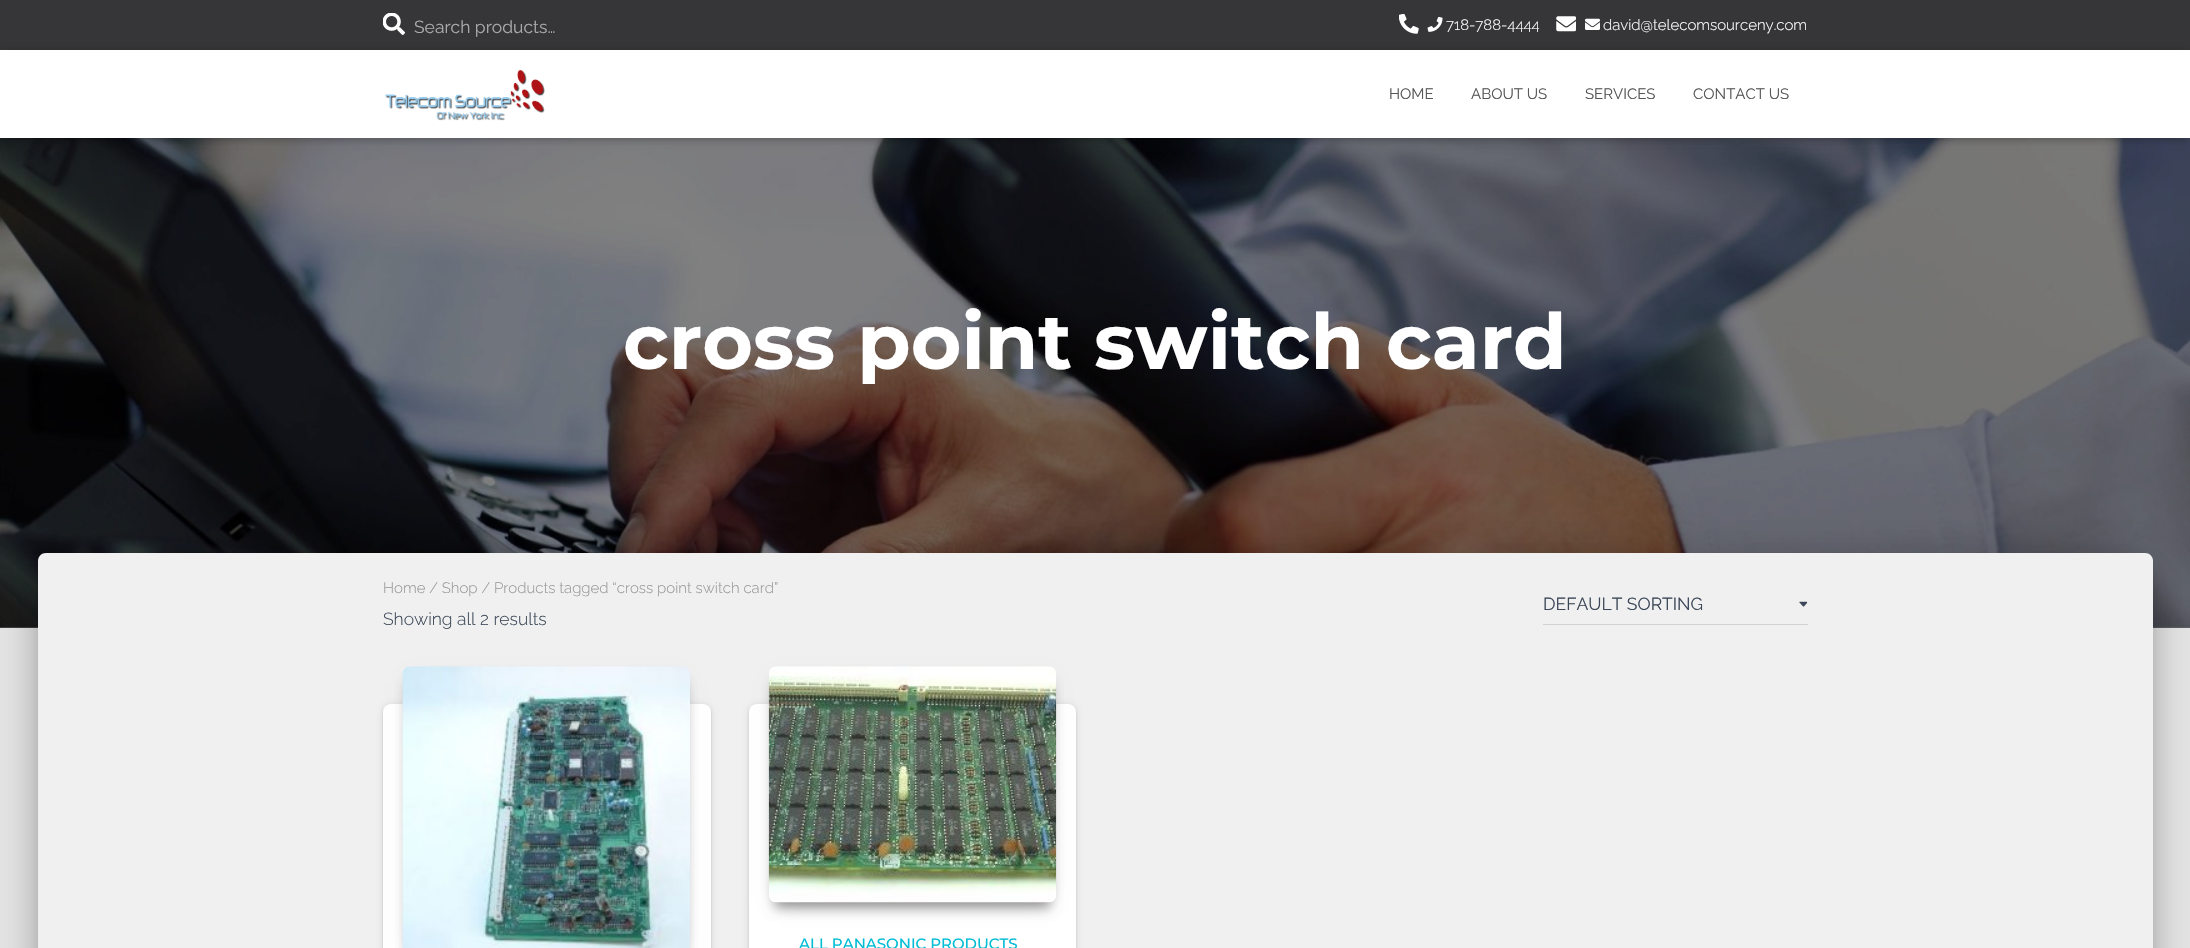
void draw(SkCanvas* canvas) {
	SkPaint paint;
	paint.setAntiAlias(true);
	auto svgPath = [&](const char* data, bool evenOdd = false) {
		SkPath result = *SkParsePath::FromSVGString(data);
		if (evenOdd) result.setFillType(SkPathFillType::kEvenOdd);
		return result;
	};
	canvas->clear(0xffe5e5e5);
	paint.setColor(0xff737373);
	canvas->drawRect(SkRect::MakeXYWH(0, 626, 2190, 2), paint);
	paint.setColor(0xff363537);
	canvas->drawRect(SkRect::MakeXYWH(0, 0, 2190, 50), paint);
	canvas->drawImageRect(SkImages::DeferredFromEncodedData(SkData::MakeFromFileName("img1.png")), SkRect::MakeXYWH(383, 13, 22, 22), SkSamplingOptions());
	SkFont f1(fontMgr->matchFamilyStyle("Raleway", SkFontStyle::Normal()), 17.5);
	f1.setSubpixel(true);
	paint.setColor(0xffaaaaaa);
	canvas->drawString("Search products…", 414, 33, f1, paint);
	canvas->drawImageRect(SkImages::DeferredFromEncodedData(SkData::MakeFromFileName("img2.png")), SkRect::MakeXYWH(1399, 14, 20, 20), SkSamplingOptions());
	canvas->drawImageRect(SkImages::DeferredFromEncodedData(SkData::MakeFromFileName("img3.png")), SkRect::MakeXYWH(1427, 16, 16, 16), SkSamplingOptions());
	SkFont f2(fontMgr->matchFamilyStyle("Raleway", SkFontStyle(300, SkFontStyle::kNormal_Width, SkFontStyle::kUpright_Slant)), 15);
	f2.setSubpixel(true);
	paint.setColor(0xffffffff);
	canvas->drawString("718-788-4444", 1446, 30, f2, paint);
	canvas->drawImageRect(SkImages::DeferredFromEncodedData(SkData::MakeFromFileName("img4.png")), SkRect::MakeXYWH(1556, 16, 20, 16), SkSamplingOptions());
	canvas->drawImageRect(SkImages::DeferredFromEncodedData(SkData::MakeFromFileName("img5.png")), SkRect::MakeXYWH(1585, 18, 15, 12), SkSamplingOptions());
	canvas->drawString("david@telecomsourceny.com", 1603, 30, f2, paint);
	canvas->drawImageRect(SkImages::DeferredFromEncodedData(SkData::MakeFromFileName("img7.png")), SkRect::MakeXYWH(0, 138, 2190, 490), SkSamplingOptions());
	paint.setColor(0x1a000000);
	paint.setMaskFilter(SkMaskFilter::MakeBlur(kNormal_SkBlurStyle, 3));
	canvas->drawRect(SkRect::MakeXYWH(3, 58, 2185, 82), paint);
	paint.setMaskFilter(nullptr);
	paint.setColor(0x1f000000);
	paint.setMaskFilter(SkMaskFilter::MakeBlur(kNormal_SkBlurStyle, 6));
	canvas->drawRect(SkRect::MakeXYWH(0, 51, 2190, 88), paint);
	paint.setMaskFilter(nullptr);
	paint.setColor(0x6b000000);
	paint.setMaskFilter(SkMaskFilter::MakeBlur(kNormal_SkBlurStyle, 6));
	canvas->drawRect(SkRect::MakeXYWH(8, 59, 2175, 72), paint);
	paint.setMaskFilter(nullptr);
	paint.setColor(0xffffffff);
	canvas->drawRect(SkRect::MakeXYWH(0, 50, 2190, 88), paint);
	canvas->drawImageRect(SkImages::DeferredFromEncodedData(SkData::MakeFromFileName("img6.png")), SkRect::MakeXYWH(385, 70, 160, 51), SkSamplingOptions());
	SkFont f3(fontMgr->matchFamilyStyle("Raleway", SkFontStyle::Normal()), 15);
	f3.setSubpixel(true);
	paint.setColor(0xff555555);
	canvas->drawString("HOME", 1389, 99, f3, paint);
	canvas->drawString("ABOUT US", 1471, 99, f3, paint);
	canvas->drawString("SERVICES", 1585, 99, f3, paint);
	canvas->drawString("CONTACT US", 1693, 99, f3, paint);
	SkFont f4(fontMgr->matchFamilyStyle("Montserrat", SkFontStyle::Bold()), 77.5);
	f4.setSubpixel(true);
	paint.setColor(0xffffffff);
	canvas->drawString("cross point switch card", 623, 369, f4, paint);
	paint.setColor(0x33000000);
	paint.setMaskFilter(SkMaskFilter::MakeBlur(kNormal_SkBlurStyle, 6));
	canvas->drawRoundRect(SkRect::MakeXYWH(44, 569, 2102, 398), 1, 1, paint);
	paint.setMaskFilter(nullptr);
	paint.setColor(0x1f000000);
	paint.setMaskFilter(SkMaskFilter::MakeBlur(kNormal_SkBlurStyle, 19));
	canvas->drawRoundRect(SkRect::MakeXYWH(31, 554, 2128, 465), 14, 14, paint);
	paint.setMaskFilter(nullptr);
	paint.setColor(0x24000000);
	paint.setMaskFilter(SkMaskFilter::MakeBlur(kNormal_SkBlurStyle, 15));
	canvas->drawRoundRect(SkRect::MakeXYWH(35, 570, 2120, 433), 10, 10, paint);
	paint.setMaskFilter(nullptr);
	paint.setColor(0xfff0f0f0);
	canvas->drawPath(svgPath("M46 553H2145C2149.5 553 2153 556.5 2153 561V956H38V561C38 556.5 41.5 553 46 553Z"), paint);
	paint.setColor(0xff999999);
	canvas->drawString("Home / Shop / Products tagged “cross point switch card”", 383, 593, f2, paint);
	SkFont f5(fontMgr->matchFamilyStyle("Raleway", SkFontStyle(300, SkFontStyle::kNormal_Width, SkFontStyle::kUpright_Slant)), 17.5);
	f5.setSubpixel(true);
	paint.setColor(0xff3c4858);
	canvas->drawString("Showing all 2 results", 383, 625, f5, paint);
	paint.setColor(0xffd2d2d2);
	canvas->drawRect(SkRect::MakeXYWH(1543, 624, 265, 1), paint);
	paint.setColor(0xff3c4858);
	canvas->drawString("DEFAULT SORTING", 1543, 610, f1, paint);
	canvas->drawImageRect(SkImages::DeferredFromEncodedData(SkData::MakeFromFileName("img8.png")), SkRect::MakeXYWH(1798, 601, 10, 6), SkSamplingOptions());
	paint.setColor(0x1f000000);
	paint.setMaskFilter(SkMaskFilter::MakeBlur(kNormal_SkBlurStyle, 3));
	canvas->drawRoundRect(SkRect::MakeXYWH(383, 705, 328, 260), 8, 8, paint);
	paint.setMaskFilter(nullptr);
	paint.setColor(0x24000000);
	paint.setMaskFilter(SkMaskFilter::MakeBlur(kNormal_SkBlurStyle, 1));
	canvas->drawRoundRect(SkRect::MakeXYWH(383, 706, 328, 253), 8, 8, paint);
	paint.setMaskFilter(nullptr);
	paint.setColor(0xffffffff);
	canvas->drawRoundRect(SkRect::MakeXYWH(383, 704, 328, 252), 8, 8, paint);
	paint.setColor(0x33000000);
	paint.setMaskFilter(SkMaskFilter::MakeBlur(kNormal_SkBlurStyle, 6));
	canvas->drawRoundRect(SkRect::MakeXYWH(409, 685, 275, 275), 1, 1, paint);
	paint.setMaskFilter(nullptr);
	paint.setMaskFilter(SkMaskFilter::MakeBlur(kNormal_SkBlurStyle, 6));
	canvas->drawRoundRect(SkRect::MakeXYWH(409, 683, 275, 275), 1, 1, paint);
	paint.setMaskFilter(nullptr);
	paint.setColor(0x3d000000);
	paint.setMaskFilter(SkMaskFilter::MakeBlur(kNormal_SkBlurStyle, 9.5));
	canvas->drawRect(SkRect::MakeXYWH(413, 683, 267, 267), paint);
	paint.setMaskFilter(nullptr);
	canvas->drawImageRect(SkImages::DeferredFromEncodedData(SkData::MakeFromFileName("img9.png")), SkRect::MakeXYWH(402, 666, 288, 282), SkSamplingOptions());
	paint.setColor(0x1f000000);
	paint.setMaskFilter(SkMaskFilter::MakeBlur(kNormal_SkBlurStyle, 3));
	canvas->drawRoundRect(SkRect::MakeXYWH(749, 705, 327, 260), 8, 8, paint);
	paint.setMaskFilter(nullptr);
	paint.setColor(0x24000000);
	paint.setMaskFilter(SkMaskFilter::MakeBlur(kNormal_SkBlurStyle, 1));
	canvas->drawRoundRect(SkRect::MakeXYWH(749, 706, 327, 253), 8, 8, paint);
	paint.setMaskFilter(nullptr);
	paint.setColor(0xffffffff);
	canvas->drawRoundRect(SkRect::MakeXYWH(749, 704, 327, 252), 8, 8, paint);
	paint.setColor(0x33000000);
	paint.setMaskFilter(SkMaskFilter::MakeBlur(kNormal_SkBlurStyle, 6));
	canvas->drawRoundRect(SkRect::MakeXYWH(775, 685, 275, 224), 1, 1, paint);
	paint.setMaskFilter(nullptr);
	paint.setMaskFilter(SkMaskFilter::MakeBlur(kNormal_SkBlurStyle, 6));
	canvas->drawRoundRect(SkRect::MakeXYWH(775, 683, 275, 223), 1, 1, paint);
	paint.setMaskFilter(nullptr);
	paint.setColor(0x3d000000);
	paint.setMaskFilter(SkMaskFilter::MakeBlur(kNormal_SkBlurStyle, 9.5));
	canvas->drawRect(SkRect::MakeXYWH(779, 683, 267, 216), paint);
	paint.setMaskFilter(nullptr);
	canvas->drawImageRect(SkImages::DeferredFromEncodedData(SkData::MakeFromFileName("img10.png")), SkRect::MakeXYWH(768, 666, 289, 237), SkSamplingOptions());
	SkFont f6(fontMgr->matchFamilyStyle("Montserrat", SkFontStyle(500, SkFontStyle::kNormal_Width, SkFontStyle::kUpright_Slant)), 15);
	f6.setSubpixel(true);
	paint.setColor(0xff00bcd4);
	canvas->drawString("ALL PANASONIC PRODUCTS", 799, 949, f6, paint);
}
